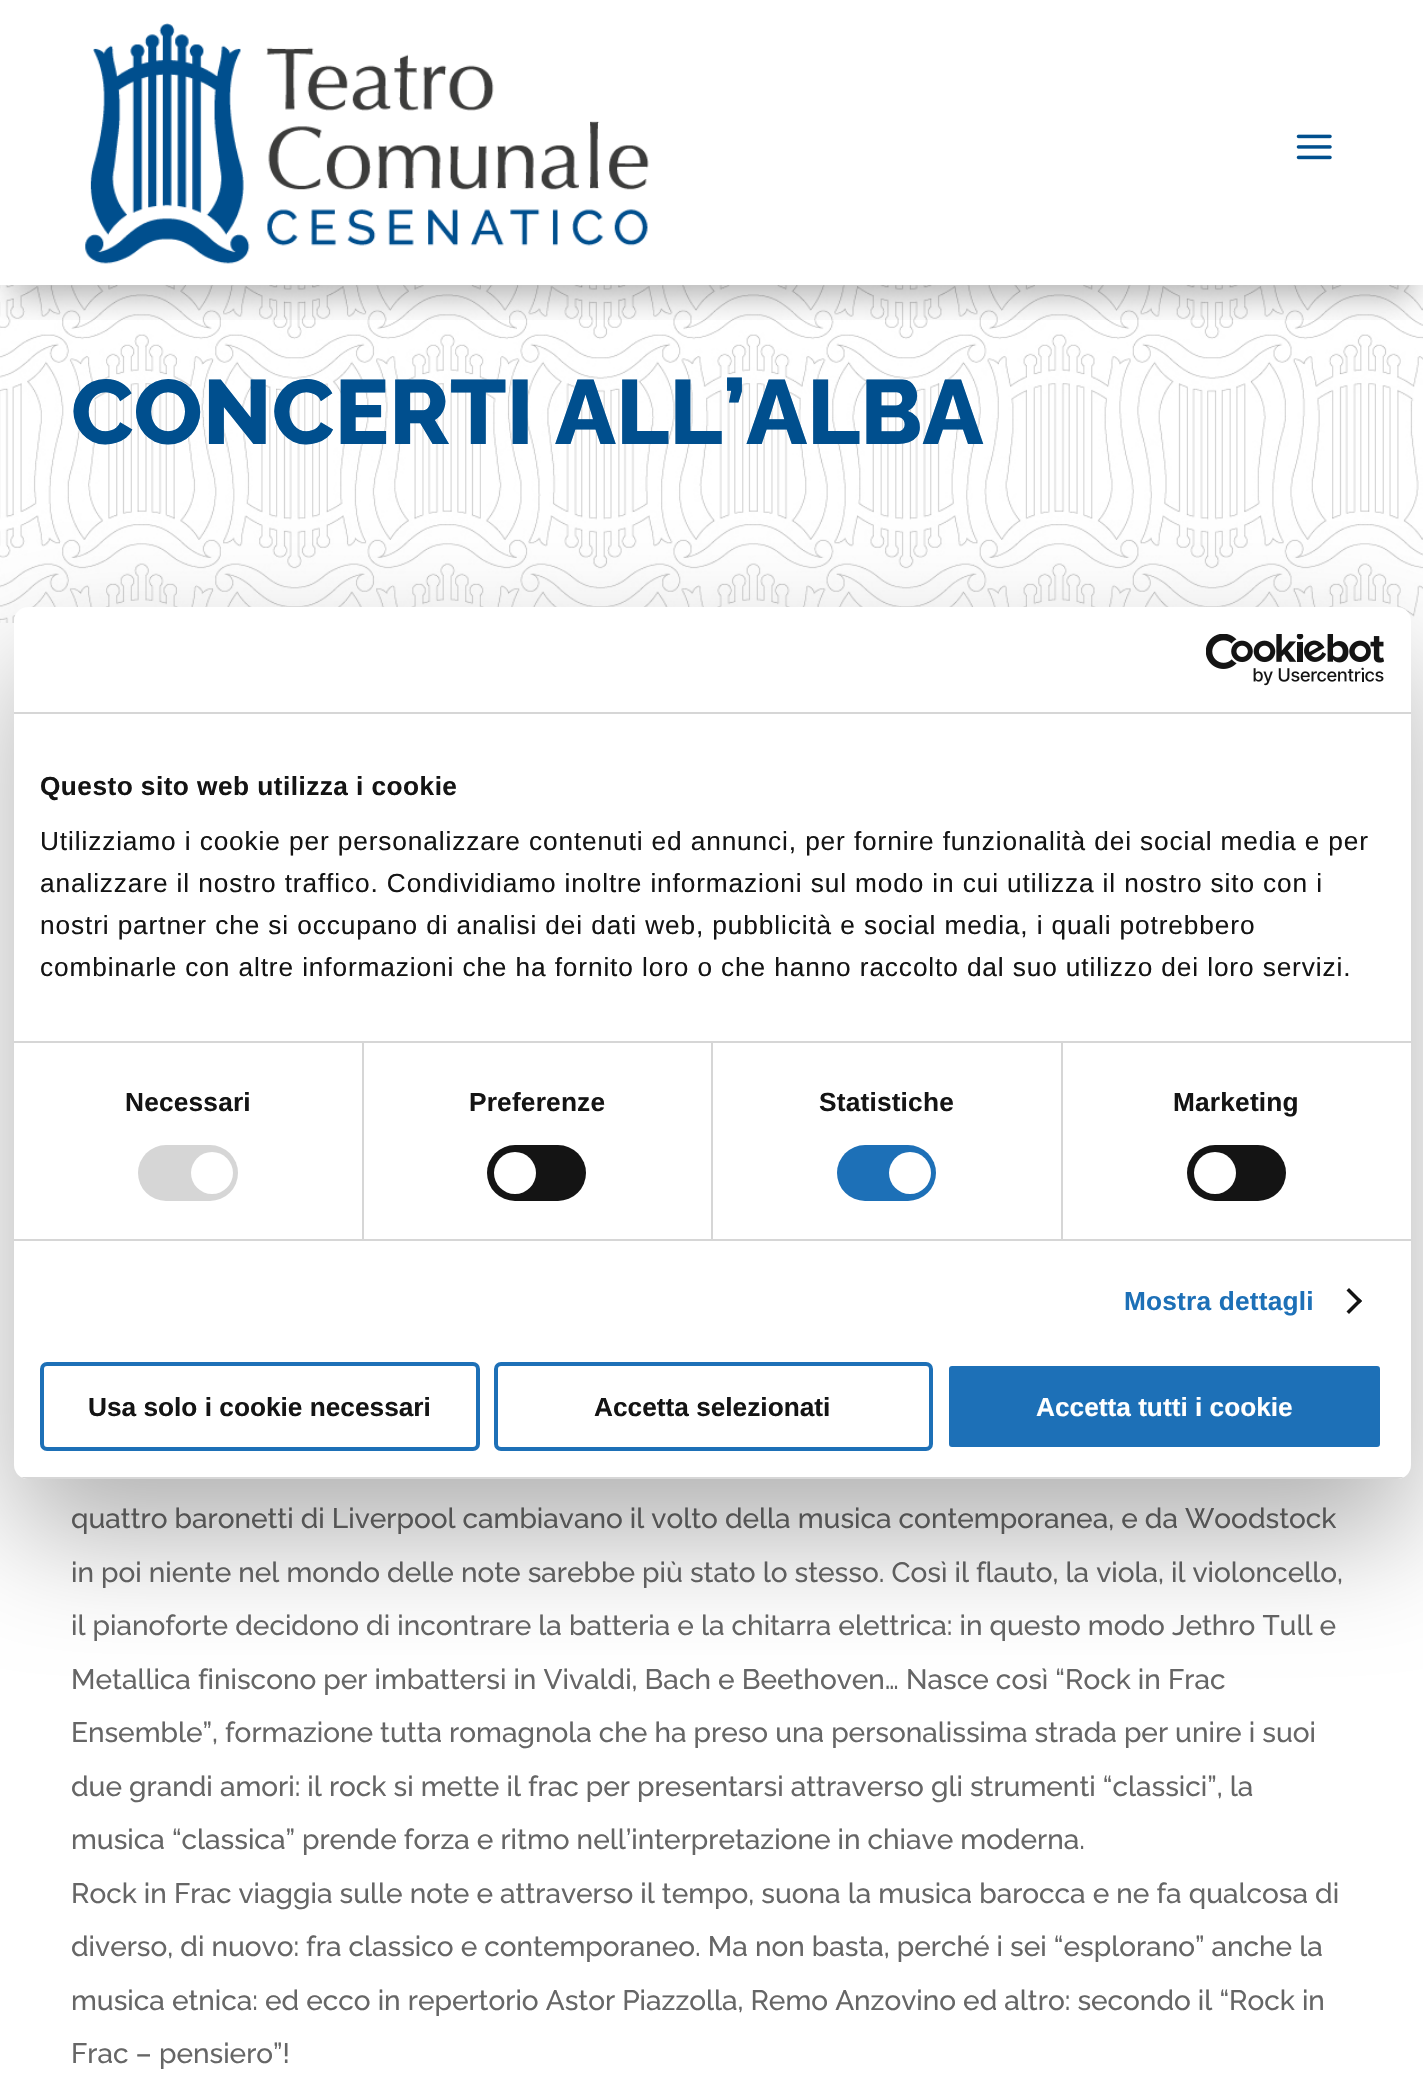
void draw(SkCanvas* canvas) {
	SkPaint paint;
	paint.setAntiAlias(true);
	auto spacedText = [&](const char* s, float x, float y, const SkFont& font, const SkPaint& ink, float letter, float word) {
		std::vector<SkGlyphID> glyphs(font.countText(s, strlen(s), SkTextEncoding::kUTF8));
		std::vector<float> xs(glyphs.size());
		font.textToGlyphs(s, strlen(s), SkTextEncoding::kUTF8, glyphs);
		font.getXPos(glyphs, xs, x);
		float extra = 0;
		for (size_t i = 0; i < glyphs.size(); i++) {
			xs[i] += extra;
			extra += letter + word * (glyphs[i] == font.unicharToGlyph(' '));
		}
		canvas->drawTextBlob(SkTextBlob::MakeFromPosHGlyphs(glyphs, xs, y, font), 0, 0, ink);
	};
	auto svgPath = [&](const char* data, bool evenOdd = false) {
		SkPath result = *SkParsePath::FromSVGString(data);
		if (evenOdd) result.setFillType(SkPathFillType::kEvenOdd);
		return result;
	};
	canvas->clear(0xffffffff);
	canvas->drawImageRect(SkImages::DeferredFromEncodedData(SkData::MakeFromFileName("img3.png")), SkRect::MakeXYWH(0, 285, 1423, 338), SkSamplingOptions());
	canvas->save();
	canvas->clipRect(SkRect::MakeXYWH(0, 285, 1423, 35));
	paint.setColor(0x4d000000);
	paint.setMaskFilter(SkMaskFilter::MakeBlur(kNormal_SkBlurStyle, 16));
	canvas->drawRect(SkRect::MakeXYWH(11, 32, 1403, 264), paint);
	paint.setMaskFilter(nullptr);
	canvas->restore();
	canvas->drawImageRect(SkImages::DeferredFromEncodedData(SkData::MakeFromFileName("img1.png")), SkRect::MakeXYWH(85, 23, 564, 241), SkSamplingOptions());
	canvas->drawImageRect(SkImages::DeferredFromEncodedData(SkData::MakeFromFileName("img2.png")), SkRect::MakeXYWH(1296, 134, 36, 26), SkSamplingOptions());
	SkFont f1(fontMgr->matchFamilyStyle("Raleway", SkFontStyle(800, SkFontStyle::kNormal_Width, SkFontStyle::kUpright_Slant)), 91);
	f1.setSubpixel(true);
	paint.setColor(0xff004f8e);
	canvas->drawString("CONCERTI ALL’ALBA", 71, 444, f1, paint);
	SkFont f2(fontMgr->matchFamilyStyle("Raleway", SkFontStyle(500, SkFontStyle::kNormal_Width, SkFontStyle::kUpright_Slant)), 28);
	f2.setSubpixel(true);
	paint.setColor(0xff666666);
	canvas->drawString("quattro baronetti di Liverpool cambiavano il volto della musica contemporanea, e da Woodstock", 71, 1528, f2, paint);
	canvas->drawString("in poi niente nel mondo delle note sarebbe più stato lo stesso. Così il flauto, la viola, il violoncello,", 71, 1582, f2, paint);
	canvas->drawString("il pianoforte decidono di incontrare la batteria e la chitarra elettrica: in questo modo Jethro Tull e", 71, 1635, f2, paint);
	canvas->drawString("Metallica finiscono per imbattersi in Vivaldi, Bach e Beethoven… Nasce così “Rock in Frac", 71, 1689, f2, paint);
	canvas->drawString("Ensemble”, formazione tutta romagnola che ha preso una personalissima strada per unire i suoi", 71, 1742, f2, paint);
	canvas->drawString("due grandi amori: il rock si mette il frac per presentarsi attraverso gli strumenti “classici”, la", 71, 1796, f2, paint);
	canvas->drawString("musica “classica” prende forza e ritmo nell’interpretazione in chiave moderna.", 71, 1849, f2, paint);
	canvas->drawString("Rock in Frac viaggia sulle note e attraverso il tempo, suona la musica barocca e ne fa qualcosa di", 71, 1903, f2, paint);
	canvas->drawString("diverso, di nuovo: fra classico e contemporaneo. Ma non basta, perché i sei “esplorano” anche la", 71, 1956, f2, paint);
	canvas->drawString("musica etnica: ed ecco in repertorio Astor Piazzolla, Remo Anzovino ed altro: secondo il “Rock in", 71, 2010, f2, paint);
	canvas->drawString("Frac – pensiero”!", 71, 2063, f2, paint);
	paint.setColor(0x4d000000);
	paint.setMaskFilter(SkMaskFilter::MakeBlur(kNormal_SkBlurStyle, 59.5));
	canvas->drawRoundRect(SkRect::MakeXYWH(14, 663, 1397, 872), 14, 14, paint);
	paint.setMaskFilter(nullptr);
	paint.setColor(0xffffffff);
	canvas->drawRoundRect(SkRect::MakeXYWH(14, 607, 1397, 872), 14, 14, paint);
	paint.setColor(0xffd6d6d6);
	canvas->drawRect(SkRect::MakeXYWH(14, 712, 1397, 2), paint);
	canvas->drawImageRect(SkImages::DeferredFromEncodedData(SkData::MakeFromFileName("img4.png")), SkRect::MakeXYWH(1206, 634, 178, 52), SkSamplingOptions());
	canvas->drawRect(SkRect::MakeXYWH(14, 1041, 1397, 2), paint);
	SkFont f3(fontMgr->matchFamilyStyle("Liberation Sans", SkFontStyle::Bold()), 26.25);
	f3.setSubpixel(true);
	paint.setColor(0xff141414);
	spacedText("Questo sito web utilizza i cookie", 40, 795, f3, paint, 0.45, 0);
	SkFont f4(fontMgr->matchFamilyStyle("Liberation Sans", SkFontStyle::Normal()), 26.25);
	f4.setSubpixel(true);
	spacedText("Utilizziamo i cookie per personalizzare contenuti ed annunci, per fornire funzionalità dei social media e per", 40, 850, f4, paint, 0.88, 0);
	spacedText("analizzare il nostro traffico. Condividiamo inoltre informazioni sul modo in cui utilizza il nostro sito con i", 40, 892, f4, paint, 0.88, 0);
	spacedText("nostri partner che si occupano di analisi dei dati web, pubblicità e social media, i quali potrebbero", 40, 934, f4, paint, 0.88, 0);
	spacedText("combinarle con altre informazioni che ha fornito loro o che hanno raccolto dal suo utilizzo dei loro servizi.", 40, 976, f4, paint, 0.88, 0);
	paint.setColor(0xffd6d6d6);
	canvas->drawRect(SkRect::MakeXYWH(14, 1239, 1397, 2), paint);
	canvas->drawRect(SkRect::MakeXYWH(362, 1043, 2, 196), paint);
	paint.setColor(0xff141414);
	spacedText("Necessari", 125, 1111, f3, paint, 0.2, 0);
	paint.setColor(0xffd6d6d6);
	canvas->drawRoundRect(SkRect::MakeXYWH(138, 1145, 100, 56), 28, 28, paint);
	paint.setColor(0xffffffff);
	canvas->drawCircle(212, 1173, 21, paint);
	paint.setColor(0xffd6d6d6);
	canvas->drawRect(SkRect::MakeXYWH(711, 1043, 2, 196), paint);
	paint.setColor(0xff141414);
	spacedText("Preferenze", 469, 1111, f3, paint, 0.2, 0);
	canvas->drawRoundRect(SkRect::MakeXYWH(487, 1145, 99, 56), 28, 28, paint);
	paint.setColor(0xffffffff);
	canvas->drawCircle(515, 1173, 21, paint);
	paint.setColor(0xffd6d6d6);
	canvas->drawRect(SkRect::MakeXYWH(1061, 1043, 2, 196), paint);
	paint.setColor(0xff141414);
	spacedText("Statistiche", 819, 1111, f3, paint, 0.2, 0);
	paint.setColor(0xff1d70b7);
	canvas->drawRoundRect(SkRect::MakeXYWH(837, 1145, 99, 56), 28, 28, paint);
	paint.setColor(0xffffffff);
	canvas->drawCircle(910, 1173, 21, paint);
	paint.setColor(0xff141414);
	spacedText("Marketing", 1173, 1111, f3, paint, 0.2, 0);
	canvas->drawRoundRect(SkRect::MakeXYWH(1187, 1145, 99, 56), 28, 28, paint);
	paint.setColor(0xffffffff);
	canvas->drawCircle(1215, 1173, 21, paint);
	paint.setColor(0xff1d70b7);
	spacedText("Mostra dettagli", 1124, 1310, f3, paint, 0.2, 0);
	paint.setColor(0xff141414);
	canvas->drawPath(svgPath("M1349 1288L1362 1301L1359.5 1303.5L1346.5 1290.5Z"), paint);
	canvas->drawPath(svgPath("M1359.5 1298.5L1362 1301L1349 1314L1346.5 1311.5Z"), paint);
	canvas->save();
	canvas->clipPath(svgPath("M28 607H1397C1404.5 607 1411 613.5 1411 621V1465C1411 1472.5 1404.5 1479 1397 1479H28C20.5 1479 14 1472.5 14 1465V621C14 613.5 20.5 607 28 607Z"), true);
	paint.setColor(0xffd6d6d6);
	canvas->drawRect(SkRect::MakeXYWH(14, 1477, 1397, 2), paint);
	canvas->restore();
	paint.setStroke(true);
	paint.setStrokeWidth(4);
	paint.setColor(0xff1d70b7);
	canvas->drawRoundRect(SkRect::MakeXYWH(42, 1364, 436, 85), 5, 5, paint);
	paint.setStroke(false);
	paint.setColor(0xff141414);
	canvas->drawString("Usa solo i cookie necessari", 88, 1416, f3, paint);
	paint.setStroke(true);
	paint.setColor(0xff1d70b7);
	canvas->drawRoundRect(SkRect::MakeXYWH(496, 1364, 435, 85), 5, 5, paint);
	paint.setStroke(false);
	paint.setColor(0xff141414);
	canvas->drawString("Accetta selezionati", 594, 1416, f3, paint);
	paint.setColor(0xff1d70b7);
	canvas->drawRoundRect(SkRect::MakeXYWH(947, 1364, 435, 85), 5, 5, paint);
	paint.setStroke(true);
	paint.setColor(0xffffffff);
	canvas->drawRoundRect(SkRect::MakeXYWH(947, 1364, 435, 85), 5, 5, paint);
	paint.setStroke(false);
	canvas->drawString("Accetta tutti i cookie", 1036, 1416, f3, paint);
}
